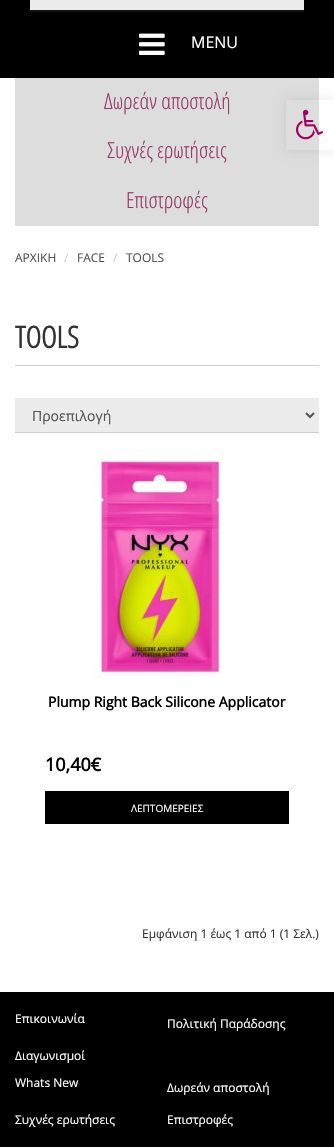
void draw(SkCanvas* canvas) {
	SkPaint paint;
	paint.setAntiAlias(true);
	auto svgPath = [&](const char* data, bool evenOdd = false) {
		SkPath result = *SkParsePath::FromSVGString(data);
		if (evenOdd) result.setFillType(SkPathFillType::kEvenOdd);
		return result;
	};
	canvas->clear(0xffffffff);
	paint.setColor(0xff000000);
	canvas->drawRect(SkRect::MakeXYWH(0, 0, 334, 78), paint);
	paint.setColor(0xffececec);
	canvas->drawRect(SkRect::MakeXYWH(30, 0, 274, 10), paint);
	paint.setColor(0xff131313);
	canvas->drawRect(SkRect::MakeXYWH(30, 10, 274, 2), paint);
	canvas->drawImageRect(SkImages::DeferredFromEncodedData(SkData::MakeFromFileName("img1.png")), SkRect::MakeXYWH(139, 33, 26, 22), SkSamplingOptions());
	SkFont f1(fontMgr->matchFamilyStyle("Open Sans", SkFontStyle::Normal()), 16);
	f1.setSubpixel(true);
	paint.setColor(0xffffffff);
	canvas->drawString("MENU", 191, 48, f1, paint);
	paint.setColor(0xffdddddd);
	canvas->drawRect(SkRect::MakeXYWH(15, 78, 304, 148), paint);
	canvas->save();
	canvas->clipPath(svgPath("M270 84H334V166H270ZM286 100H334V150H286Z", true), true);
	paint.setColor(0x1a000000);
	paint.setMaskFilter(SkMaskFilter::MakeBlur(kNormal_SkBlurStyle, 5));
	canvas->drawRect(SkRect::MakeXYWH(286, 100, 48, 50), paint);
	paint.setMaskFilter(nullptr);
	canvas->restore();
	canvas->drawImageRect(SkImages::DeferredFromEncodedData(SkData::MakeFromFileName("img2.png")), SkRect::MakeXYWH(296, 109, 28, 31), SkSamplingOptions());
	SkFont f2(fontMgr->matchFamilyStyle("Open Sans Condensed", SkFontStyle(300, SkFontStyle::kNormal_Width, SkFontStyle::kUpright_Slant)), 22);
	f2.setSubpixel(true);
	paint.setColor(0xff953761);
	canvas->drawString("Δωρεάν αποστολή", 104, 109, f2, paint);
	canvas->drawString("Συχνές ερωτήσεις", 107, 158, f2, paint);
	canvas->drawString("Επιστροφές", 126, 208, f2, paint);
	SkFont f3(fontMgr->matchFamilyStyle("Open Sans", SkFontStyle::Normal()), 12);
	f3.setSubpixel(true);
	paint.setColor(0xff525252);
	canvas->drawString("ΑΡΧΙΚΗ", 15, 262, f3, paint);
	paint.setColor(0xffcccccc);
	canvas->drawString("/", 64, 262, f3, paint);
	paint.setColor(0xff525252);
	canvas->drawString("FACE", 77, 262, f3, paint);
	paint.setColor(0xffcccccc);
	canvas->drawString("/", 113, 262, f3, paint);
	paint.setColor(0xff525252);
	canvas->drawString("TOOLS", 126, 262, f3, paint);
	paint.setColor(0xffcccccc);
	canvas->drawRect(SkRect::MakeXYWH(15, 365, 304, 1), paint);
	SkFont f4(fontMgr->matchFamilyStyle("Open Sans Condensed", SkFontStyle::Bold()), 30);
	f4.setSubpixel(true);
	paint.setColor(0xff333333);
	canvas->drawString("TOOLS", 15, 348, f4, paint);
	paint.setColor(0xffcccccc);
	canvas->drawRect(SkRect::MakeXYWH(15, 432, 304, 1), paint);
	paint.setColor(0xffececec);
	canvas->drawRect(SkRect::MakeXYWH(15, 398, 304, 34), paint);
	paint.setStroke(true);
	paint.setStrokeWidth(2);
	paint.setColor(0xff555555);
	canvas->drawPath(svgPath("M306 413L310 417L314 413"), paint);
	SkFont f5(fontMgr->matchFamilyStyle("Open Sans", SkFontStyle::Normal()), 14);
	f5.setSubpixel(true);
	paint.setStroke(false);
	paint.setColor(0xff525252);
	canvas->drawString("Προεπιλογή", 32, 421, f5, paint);
	canvas->drawImageRect(SkImages::DeferredFromEncodedData(SkData::MakeFromFileName("img3.png")), SkRect::MakeXYWH(94, 453, 128, 224), SkSamplingOptions());
	SkFont f6(fontMgr->matchFamilyStyle("Open Sans", SkFontStyle::Bold()), 14);
	f6.setSubpixel(true);
	paint.setColor(0xff000000);
	canvas->drawString("Plump Right Back Silicone Applicator", 48, 707, f6, paint);
	SkFont f7(fontMgr->matchFamilyStyle("Open Sans", SkFontStyle::Bold()), 18);
	f7.setSubpixel(true);
	canvas->drawString("10,40€", 45, 771, f7, paint);
	canvas->drawRect(SkRect::MakeXYWH(45, 791, 244, 33), paint);
	SkFont f8(fontMgr->matchFamilyStyle("Open Sans", SkFontStyle::Normal()), 10);
	f8.setSubpixel(true);
	paint.setColor(0xffffffff);
	canvas->drawString("ΛΕΠΤΟΜΕΡΕΙΕΣ", 131, 812, f8, paint);
	paint.setColor(0xff333333);
	canvas->drawString("Εμφάνιση 1 έως 1 από 1 (1 Σελ.)", 142, 938, f3, paint);
	paint.setColor(0xff000000);
	canvas->drawRect(SkRect::MakeXYWH(0, 992, 334, 155), paint);
	paint.setColor(0xffffffff);
	canvas->drawString("Επικοινωνία", 15, 1023, f3, paint);
	canvas->drawString("Πολιτική Παράδοσης", 167, 1028, f3, paint);
	canvas->drawString("Διαγωνισμοί", 15, 1060, f3, paint);
	canvas->drawString("Whats New", 15, 1087, f3, paint);
	canvas->drawString("Δωρεάν αποστολή", 167, 1092, f3, paint);
	canvas->drawString("Συχνές ερωτήσεις", 15, 1124, f3, paint);
	canvas->drawString("Επιστροφές", 167, 1124, f3, paint);
}
